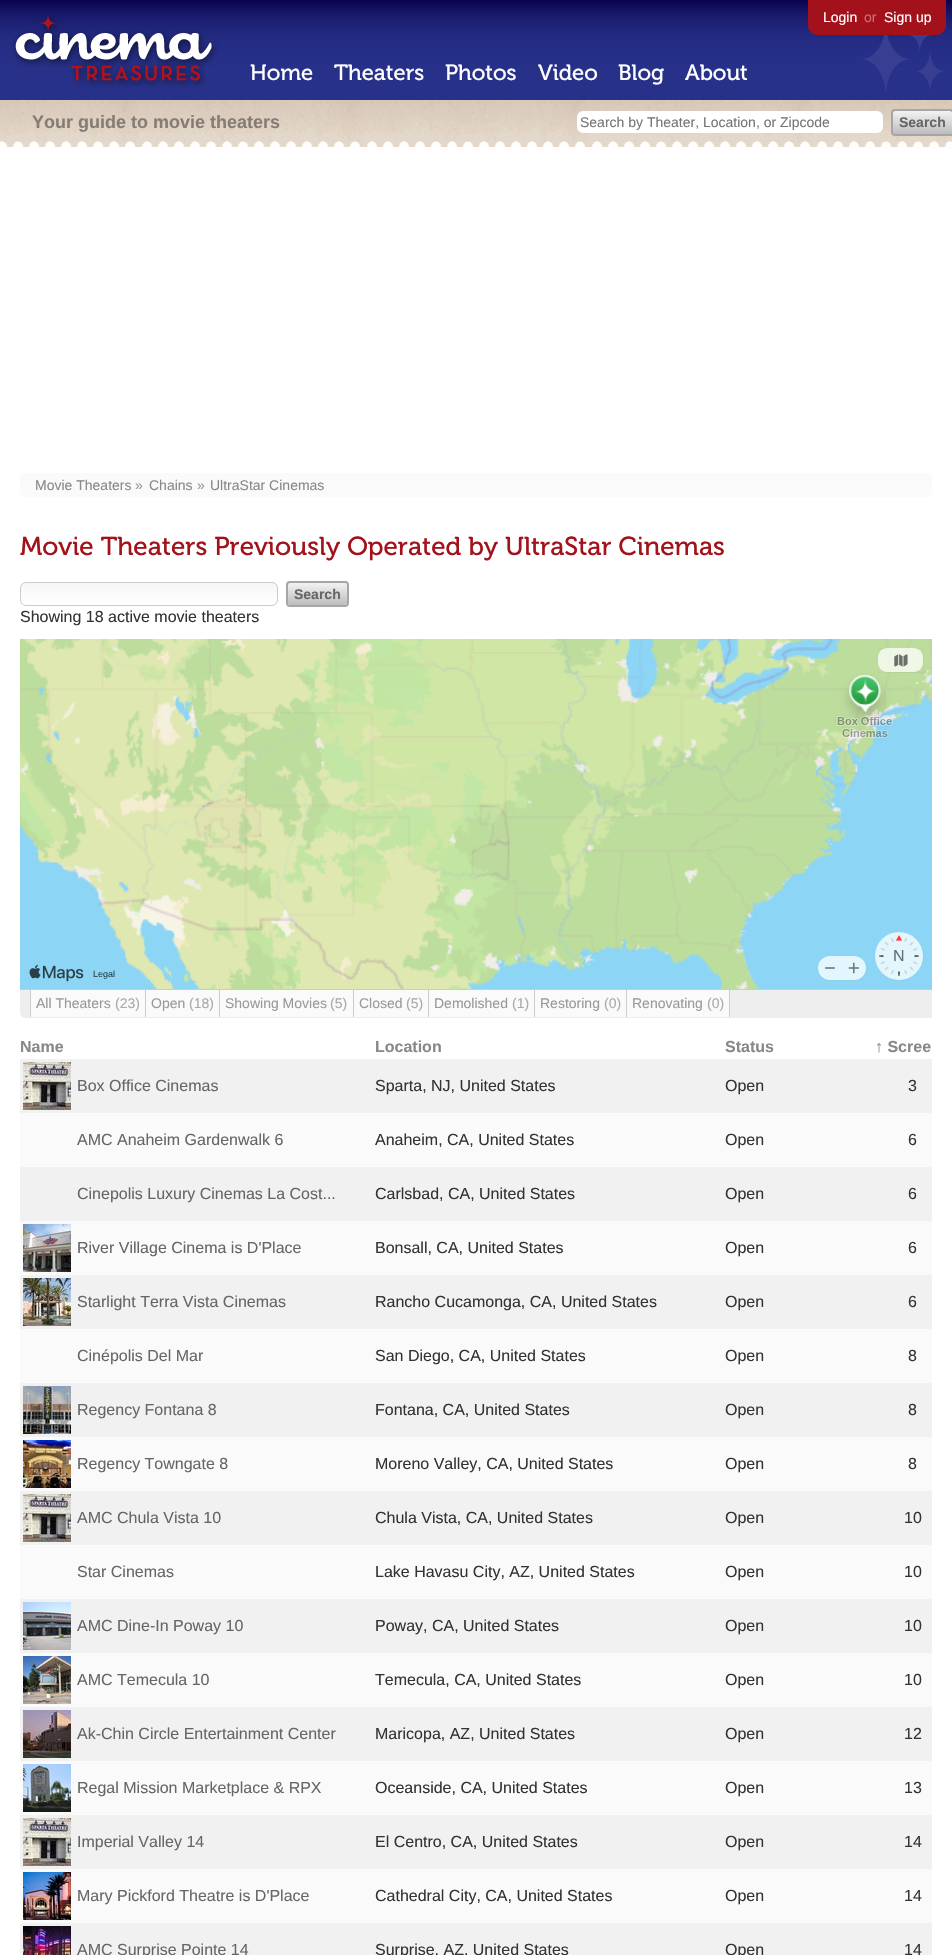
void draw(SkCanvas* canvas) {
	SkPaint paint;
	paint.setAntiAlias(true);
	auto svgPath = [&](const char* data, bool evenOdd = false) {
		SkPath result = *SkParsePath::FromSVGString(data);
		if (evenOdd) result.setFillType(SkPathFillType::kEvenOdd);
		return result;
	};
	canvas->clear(0xffffffff);
	canvas->drawImageRect(SkImages::DeferredFromEncodedData(SkData::MakeFromFileName("img1.png")), SkRect::MakeXYWH(0, 0, 952, 100), SkSamplingOptions());
	canvas->drawImageRect(SkImages::DeferredFromEncodedData(SkData::MakeFromFileName("img2.png")), SkRect::MakeXYWH(12, 15, 206, 73), SkSamplingOptions());
	SkFont f1(fontMgr->matchFamilyStyle("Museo", SkFontStyle::Normal()), 22);
	f1.setSubpixel(true);
	paint.setColor(0xffffffff);
	canvas->drawString("Home", 250, 80, f1, paint);
	canvas->drawString("Theaters", 334, 80, f1, paint);
	canvas->drawString("Photos", 445, 80, f1, paint);
	canvas->drawString("Video", 538, 80, f1, paint);
	canvas->drawString("Blog", 618, 80, f1, paint);
	canvas->drawString("About", 685, 80, f1, paint);
	paint.setColor(0xffa3121b);
	canvas->drawPath(svgPath("M808 0H946V25C946 30.5 941.5 35 936 35H818C812.5 35 808 30.5 808 25Z"), paint);
	SkFont f2(fontMgr->matchFamilyStyle("Liberation Sans", SkFontStyle::Normal()), 14);
	f2.setSubpixel(true);
	paint.setColor(0xffffffff);
	canvas->drawString("Login", 823, 22, f2, paint);
	paint.setColor(0xffc87176);
	canvas->drawString("or", 864, 22, f2, paint);
	paint.setColor(0xffffffff);
	canvas->drawString("Sign up", 884, 22, f2, paint);
	canvas->drawImageRect(SkImages::DeferredFromEncodedData(SkData::MakeFromFileName("img3.png")), SkRect::MakeXYWH(862, 35, 81, 58), SkSamplingOptions());
	canvas->drawImageRect(SkImages::DeferredFromEncodedData(SkData::MakeFromFileName("img4.png")), SkRect::MakeXYWH(0, 100, 952, 48), SkSamplingOptions());
	SkFont f3(fontMgr->matchFamilyStyle("Liberation Sans", SkFontStyle::Bold()), 18);
	f3.setSubpixel(true);
	paint.setColor(0xff857d74);
	canvas->drawString("Your guide to movie theaters", 32, 128, f3, paint);
	paint.setColor(0xffffffff);
	canvas->drawRoundRect(SkRect::MakeXYWH(577, 111, 306, 22), 6, 6, paint);
	paint.setColor(0xff757575);
	canvas->drawString("Search by Theater, Location, or Zipcode", 580, 127, f2, paint);
	{
		const SkColor colors[] = {0xfff2f2f2, 0xffbdbdbd};
		const float stops[] = {0, 1};
		const SkPoint ends[] = {{923, 111}, {923, 134}};
		paint.setShader(SkGradientShader::MakeLinear(ends, colors, stops, 2, SkTileMode::kClamp));
		paint.setAlpha(255);
	}
	canvas->drawRoundRect(SkRect::MakeXYWH(893, 111, 59, 23), 2, 2, paint);
	paint.setStroke(true);
	paint.setStrokeWidth(2);
	paint.setShader(nullptr);
	paint.setColor(0xffa6a6a6);
	canvas->drawRoundRect(SkRect::MakeXYWH(892, 110, 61, 25), 3, 3, paint);
	SkFont f4(fontMgr->matchFamilyStyle("Liberation Sans", SkFontStyle::Bold()), 14);
	f4.setSubpixel(true);
	paint.setStroke(false);
	paint.setColor(0xff666666);
	canvas->drawString("Search", 899, 127, f4, paint);
	paint.setColor(0xfffafafa);
	canvas->drawRoundRect(SkRect::MakeXYWH(20, 473, 912, 24), 6, 6, paint);
	paint.setColor(0xff888888);
	canvas->drawString("Movie Theaters", 35, 490, f2, paint);
	paint.setColor(0xff999999);
	canvas->drawString("»", 135, 490, f2, paint);
	paint.setColor(0xff888888);
	canvas->drawString("Chains", 149, 490, f2, paint);
	paint.setColor(0xff999999);
	canvas->drawString("»", 197, 490, f2, paint);
	paint.setColor(0xff888888);
	canvas->drawString("UltraStar Cinemas", 210, 490, f2, paint);
	SkFont f5(fontMgr->matchFamilyStyle("Museo", SkFontStyle::Normal()), 26);
	f5.setSubpixel(true);
	paint.setColor(0xffa3121b);
	canvas->drawString("Movie Theaters Previously Operated by UltraStar Cinemas", 20, 555, f5, paint);
	canvas->save();
	canvas->clipPath(svgPath("M26 582H272C275.5 582 278 584.5 278 588V600C278 603.5 275.5 606 272 606H26C22.5 606 20 603.5 20 600V588C20 584.5 22.5 582 26 582Z"), true);
	{
		const SkColor colors[] = {0xfff6f6f6, 0xffffffff};
		const float stops[] = {0, 1};
		const SkPoint ends[] = {{149, 583}, {149, 605}};
		paint.setShader(SkGradientShader::MakeLinear(ends, colors, stops, 2, SkTileMode::kClamp));
		paint.setAlpha(255);
	}
	canvas->drawRect(SkRect::MakeXYWH(20, 583, 258, 22), paint);
	canvas->restore();
	paint.setStroke(true);
	paint.setStrokeWidth(1);
	paint.setShader(nullptr);
	paint.setColor(0xffcccccc);
	canvas->drawRoundRect(SkRect::MakeXYWH(20.5, 582.5, 257, 23), 5.5, 5.5, paint);
	paint.setStroke(false);
	{
		const SkColor colors[] = {0xfff2f2f2, 0xffbdbdbd};
		const float stops[] = {0, 1};
		const SkPoint ends[] = {{318, 583}, {318, 605}};
		paint.setShader(SkGradientShader::MakeLinear(ends, colors, stops, 2, SkTileMode::kClamp));
		paint.setAlpha(255);
	}
	canvas->drawRoundRect(SkRect::MakeXYWH(288, 583, 59, 22), 2, 2, paint);
	paint.setStroke(true);
	paint.setStrokeWidth(2);
	paint.setShader(nullptr);
	paint.setColor(0xffa6a6a6);
	canvas->drawRoundRect(SkRect::MakeXYWH(287, 582, 61, 24), 3, 3, paint);
	paint.setStroke(false);
	paint.setColor(0xff666666);
	canvas->drawString("Search", 294, 599, f4, paint);
	SkFont f6(fontMgr->matchFamilyStyle("Liberation Sans", SkFontStyle::Normal()), 16);
	f6.setSubpixel(true);
	paint.setColor(0xff333333);
	canvas->drawString("Showing 18 active movie theaters", 20, 622, f6, paint);
	canvas->drawImageRect(SkImages::DeferredFromEncodedData(SkData::MakeFromFileName("img5.png")), SkRect::MakeXYWH(20, 639, 912, 350), SkSamplingOptions());
	paint.setStroke(true);
	paint.setStrokeWidth(0.5);
	paint.setColor(0x0d000000);
	canvas->drawRect(SkRect::MakeXYWH(878.25, 648.25, 45.5, 24.5), paint);
	paint.setStroke(false);
	paint.setColor(0xbfffffff);
	canvas->drawRoundRect(SkRect::MakeXYWH(878, 648, 45, 24), 9, 9, paint);
	canvas->drawImageRect(SkImages::DeferredFromEncodedData(SkData::MakeFromFileName("img6.png")), SkRect::MakeXYWH(894, 654, 14, 13), SkSamplingOptions());
	paint.setStroke(true);
	paint.setColor(0xff86cae9);
	canvas->drawRoundRect(SkRect::MakeXYWH(818.25, 956.25, 48.5, 24.5), 12.25, 12.25, paint);
	paint.setStroke(false);
	paint.setColor(0xbfffffff);
	canvas->drawRoundRect(SkRect::MakeXYWH(818, 956, 48, 24), 12, 12, paint);
	canvas->drawImageRect(SkImages::DeferredFromEncodedData(SkData::MakeFromFileName("img7.png")), SkRect::MakeXYWH(825, 967, 10, 2), SkSamplingOptions());
	canvas->drawImageRect(SkImages::DeferredFromEncodedData(SkData::MakeFromFileName("img8.png")), SkRect::MakeXYWH(848, 962, 11, 12), SkSamplingOptions());
	paint.setStroke(true);
	paint.setColor(0xff86cae9);
	canvas->drawCircle(899.5, 956.5, 24.25, paint);
	paint.setStroke(false);
	paint.setColor(0xbfffffff);
	canvas->drawCircle(899, 956, 24, paint);
	canvas->drawImageRect(SkImages::DeferredFromEncodedData(SkData::MakeFromFileName("img9.png")), SkRect::MakeXYWH(879, 935, 40, 41), SkSamplingOptions());
	paint.setColor(0xff666e72);
	canvas->drawString("N", 893, 961, f6, paint);
	canvas->drawImageRect(SkImages::DeferredFromEncodedData(SkData::MakeFromFileName("img10.png")), SkRect::MakeXYWH(29, 964, 55, 18), SkSamplingOptions());
	SkFont f7(fontMgr->matchFamilyStyle("Liberation Sans", SkFontStyle::Normal()), 9);
	f7.setSubpixel(true);
	paint.setColor(0xff2a404a);
	canvas->drawString("Legal", 93, 977, f7, paint);
	paint.setColor(0xffeeeeee);
	canvas->drawPath(svgPath("M20 989H932V1018H26C22.5 1018 20 1015.5 20 1012Z"), paint);
	paint.setColor(0xffcccccc);
	canvas->drawRect(SkRect::MakeXYWH(20, 989, 912, 1), paint);
	canvas->save();
	canvas->clipRect(SkRect::MakeXYWH(20, 172, 912, 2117));
	paint.setColor(0xffeeeeee);
	canvas->drawPath(svgPath("M26 1018H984C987 1018 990 1015 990 1012C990 1015 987 1017 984 1017H26C23 1017 20 1015 20 1012C20 1015 23 1018 26 1018Z"), paint);
	canvas->restore();
	paint.setColor(0xfffafafa);
	canvas->drawRect(SkRect::MakeXYWH(31, 990, 114, 27), paint);
	paint.setColor(0xffcccccc);
	canvas->drawRect(SkRect::MakeXYWH(145, 990, 1, 27), paint);
	canvas->drawRect(SkRect::MakeXYWH(30, 990, 1, 27), paint);
	paint.setColor(0xff999999);
	canvas->drawString("All Theaters", 36, 1008, f2, paint);
	paint.setColor(0xffaaaaaa);
	canvas->drawString("(23)", 115, 1008, f2, paint);
	paint.setColor(0xfffafafa);
	canvas->drawRect(SkRect::MakeXYWH(146, 990, 73, 27), paint);
	paint.setColor(0xffcccccc);
	canvas->drawRect(SkRect::MakeXYWH(219, 990, 1, 27), paint);
	paint.setColor(0xff999999);
	canvas->drawString("Open", 151, 1008, f2, paint);
	paint.setColor(0xffaaaaaa);
	canvas->drawString("(18)", 189, 1008, f2, paint);
	paint.setColor(0xfffafafa);
	canvas->drawRect(SkRect::MakeXYWH(220, 990, 133, 27), paint);
	paint.setColor(0xffcccccc);
	canvas->drawRect(SkRect::MakeXYWH(353, 990, 1, 27), paint);
	paint.setColor(0xff999999);
	canvas->drawString("Showing Movies", 225, 1008, f2, paint);
	paint.setColor(0xffaaaaaa);
	canvas->drawString("(5)", 330, 1008, f2, paint);
	paint.setColor(0xfffafafa);
	canvas->drawRect(SkRect::MakeXYWH(354, 990, 74, 27), paint);
	paint.setColor(0xffcccccc);
	canvas->drawRect(SkRect::MakeXYWH(428, 990, 1, 27), paint);
	paint.setColor(0xff999999);
	canvas->drawString("Closed", 359, 1008, f2, paint);
	paint.setColor(0xffaaaaaa);
	canvas->drawString("(5)", 406, 1008, f2, paint);
	paint.setColor(0xfffafafa);
	canvas->drawRect(SkRect::MakeXYWH(429, 990, 105, 27), paint);
	paint.setColor(0xffcccccc);
	canvas->drawRect(SkRect::MakeXYWH(534, 990, 1, 27), paint);
	paint.setColor(0xff999999);
	canvas->drawString("Demolished", 434, 1008, f2, paint);
	paint.setColor(0xffaaaaaa);
	canvas->drawString("(1)", 512, 1008, f2, paint);
	paint.setColor(0xfffafafa);
	canvas->drawRect(SkRect::MakeXYWH(535, 990, 91, 27), paint);
	paint.setColor(0xffcccccc);
	canvas->drawRect(SkRect::MakeXYWH(626, 990, 1, 27), paint);
	paint.setColor(0xff999999);
	canvas->drawString("Restoring", 540, 1008, f2, paint);
	paint.setColor(0xffaaaaaa);
	canvas->drawString("(0)", 604, 1008, f2, paint);
	paint.setColor(0xfffafafa);
	canvas->drawRect(SkRect::MakeXYWH(627, 990, 102, 27), paint);
	paint.setColor(0xffcccccc);
	canvas->drawRect(SkRect::MakeXYWH(729, 990, 1, 27), paint);
	paint.setColor(0xff999999);
	canvas->drawString("Renovating", 632, 1008, f2, paint);
	paint.setColor(0xffaaaaaa);
	canvas->drawString("(0)", 707, 1008, f2, paint);
	SkFont f8(fontMgr->matchFamilyStyle("Liberation Sans", SkFontStyle::Bold()), 16);
	f8.setSubpixel(true);
	paint.setColor(0xff888888);
	canvas->drawString("Name", 20, 1052, f8, paint);
	canvas->drawString("Location", 375, 1052, f8, paint);
	canvas->drawString("Status", 725, 1052, f8, paint);
	canvas->drawString("↑ Scree", 875, 1052, f8, paint);
	paint.setColor(0xfff1f1f1);
	canvas->drawRect(SkRect::MakeXYWH(20, 1059, 912, 54), paint);
	canvas->drawImageRect(SkImages::DeferredFromEncodedData(SkData::MakeFromFileName("img11.png")), SkRect::MakeXYWH(23, 1062, 48, 48), SkSamplingOptions());
	paint.setColor(0xff666666);
	canvas->drawString("Box Office Cinemas", 77, 1091, f6, paint);
	paint.setColor(0xff333333);
	canvas->drawString("Sparta, NJ, United States", 375, 1091, f6, paint);
	canvas->drawString("Open", 725, 1091, f6, paint);
	canvas->drawString("3", 908, 1091, f6, paint);
	paint.setColor(0xfffafafa);
	canvas->drawRect(SkRect::MakeXYWH(20, 1113, 912, 54), paint);
	paint.setColor(0xff666666);
	canvas->drawString("AMC Anaheim Gardenwalk 6", 77, 1145, f6, paint);
	paint.setColor(0xff333333);
	canvas->drawString("Anaheim, CA, United States", 375, 1145, f6, paint);
	canvas->drawString("Open", 725, 1145, f6, paint);
	canvas->drawString("6", 908, 1145, f6, paint);
	paint.setColor(0xfff1f1f1);
	canvas->drawRect(SkRect::MakeXYWH(20, 1167, 912, 54), paint);
	paint.setColor(0xff666666);
	canvas->drawString("Cinepolis Luxury Cinemas La Cost...", 77, 1199, f6, paint);
	paint.setColor(0xff333333);
	canvas->drawString("Carlsbad, CA, United States", 375, 1199, f6, paint);
	canvas->drawString("Open", 725, 1199, f6, paint);
	canvas->drawString("6", 908, 1199, f6, paint);
	paint.setColor(0xfffafafa);
	canvas->drawRect(SkRect::MakeXYWH(20, 1221, 912, 54), paint);
	canvas->drawImageRect(SkImages::DeferredFromEncodedData(SkData::MakeFromFileName("img12.png")), SkRect::MakeXYWH(23, 1224, 48, 48), SkSamplingOptions());
	paint.setColor(0xff666666);
	canvas->drawString("River Village Cinema is D'Place", 77, 1253, f6, paint);
	paint.setColor(0xff333333);
	canvas->drawString("Bonsall, CA, United States", 375, 1253, f6, paint);
	canvas->drawString("Open", 725, 1253, f6, paint);
	canvas->drawString("6", 908, 1253, f6, paint);
	paint.setColor(0xfff1f1f1);
	canvas->drawRect(SkRect::MakeXYWH(20, 1275, 912, 54), paint);
	canvas->drawImageRect(SkImages::DeferredFromEncodedData(SkData::MakeFromFileName("img13.png")), SkRect::MakeXYWH(23, 1278, 48, 48), SkSamplingOptions());
	paint.setColor(0xff666666);
	canvas->drawString("Starlight Terra Vista Cinemas", 77, 1307, f6, paint);
	paint.setColor(0xff333333);
	canvas->drawString("Rancho Cucamonga, CA, United States", 375, 1307, f6, paint);
	canvas->drawString("Open", 725, 1307, f6, paint);
	canvas->drawString("6", 908, 1307, f6, paint);
	paint.setColor(0xfffafafa);
	canvas->drawRect(SkRect::MakeXYWH(20, 1329, 912, 54), paint);
	paint.setColor(0xff666666);
	canvas->drawString("Cinépolis Del Mar", 77, 1361, f6, paint);
	paint.setColor(0xff333333);
	canvas->drawString("San Diego, CA, United States", 375, 1361, f6, paint);
	canvas->drawString("Open", 725, 1361, f6, paint);
	canvas->drawString("8", 908, 1361, f6, paint);
	paint.setColor(0xfff1f1f1);
	canvas->drawRect(SkRect::MakeXYWH(20, 1383, 912, 54), paint);
	canvas->drawImageRect(SkImages::DeferredFromEncodedData(SkData::MakeFromFileName("img14.png")), SkRect::MakeXYWH(23, 1386, 48, 48), SkSamplingOptions());
	paint.setColor(0xff666666);
	canvas->drawString("Regency Fontana 8", 77, 1415, f6, paint);
	paint.setColor(0xff333333);
	canvas->drawString("Fontana, CA, United States", 375, 1415, f6, paint);
	canvas->drawString("Open", 725, 1415, f6, paint);
	canvas->drawString("8", 908, 1415, f6, paint);
	paint.setColor(0xfffafafa);
	canvas->drawRect(SkRect::MakeXYWH(20, 1437, 912, 54), paint);
	canvas->drawImageRect(SkImages::DeferredFromEncodedData(SkData::MakeFromFileName("img15.png")), SkRect::MakeXYWH(23, 1440, 48, 48), SkSamplingOptions());
	paint.setColor(0xff666666);
	canvas->drawString("Regency Towngate 8", 77, 1469, f6, paint);
	paint.setColor(0xff333333);
	canvas->drawString("Moreno Valley, CA, United States", 375, 1469, f6, paint);
	canvas->drawString("Open", 725, 1469, f6, paint);
	canvas->drawString("8", 908, 1469, f6, paint);
	paint.setColor(0xfff1f1f1);
	canvas->drawRect(SkRect::MakeXYWH(20, 1491, 912, 54), paint);
	canvas->drawImageRect(SkImages::DeferredFromEncodedData(SkData::MakeFromFileName("img11.png")), SkRect::MakeXYWH(23, 1494, 48, 48), SkSamplingOptions());
	paint.setColor(0xff666666);
	canvas->drawString("AMC Chula Vista 10", 77, 1523, f6, paint);
	paint.setColor(0xff333333);
	canvas->drawString("Chula Vista, CA, United States", 375, 1523, f6, paint);
	canvas->drawString("Open", 725, 1523, f6, paint);
	canvas->drawString("10", 904, 1523, f6, paint);
	paint.setColor(0xfffafafa);
	canvas->drawRect(SkRect::MakeXYWH(20, 1545, 912, 54), paint);
	paint.setColor(0xff666666);
	canvas->drawString("Star Cinemas", 77, 1577, f6, paint);
	paint.setColor(0xff333333);
	canvas->drawString("Lake Havasu City, AZ, United States", 375, 1577, f6, paint);
	canvas->drawString("Open", 725, 1577, f6, paint);
	canvas->drawString("10", 904, 1577, f6, paint);
	paint.setColor(0xfff1f1f1);
	canvas->drawRect(SkRect::MakeXYWH(20, 1599, 912, 54), paint);
	canvas->drawImageRect(SkImages::DeferredFromEncodedData(SkData::MakeFromFileName("img16.png")), SkRect::MakeXYWH(23, 1602, 48, 48), SkSamplingOptions());
	paint.setColor(0xff666666);
	canvas->drawString("AMC Dine-In Poway 10", 77, 1631, f6, paint);
	paint.setColor(0xff333333);
	canvas->drawString("Poway, CA, United States", 375, 1631, f6, paint);
	canvas->drawString("Open", 725, 1631, f6, paint);
	canvas->drawString("10", 904, 1631, f6, paint);
	paint.setColor(0xfffafafa);
	canvas->drawRect(SkRect::MakeXYWH(20, 1653, 912, 54), paint);
	canvas->drawImageRect(SkImages::DeferredFromEncodedData(SkData::MakeFromFileName("img17.png")), SkRect::MakeXYWH(23, 1656, 48, 48), SkSamplingOptions());
	paint.setColor(0xff666666);
	canvas->drawString("AMC Temecula 10", 77, 1685, f6, paint);
	paint.setColor(0xff333333);
	canvas->drawString("Temecula, CA, United States", 375, 1685, f6, paint);
	canvas->drawString("Open", 725, 1685, f6, paint);
	canvas->drawString("10", 904, 1685, f6, paint);
	paint.setColor(0xfff1f1f1);
	canvas->drawRect(SkRect::MakeXYWH(20, 1707, 912, 54), paint);
	canvas->drawImageRect(SkImages::DeferredFromEncodedData(SkData::MakeFromFileName("img18.png")), SkRect::MakeXYWH(23, 1710, 48, 48), SkSamplingOptions());
	paint.setColor(0xff666666);
	canvas->drawString("Ak-Chin Circle Entertainment Center", 77, 1739, f6, paint);
	paint.setColor(0xff333333);
	canvas->drawString("Maricopa, AZ, United States", 375, 1739, f6, paint);
	canvas->drawString("Open", 725, 1739, f6, paint);
	canvas->drawString("12", 904, 1739, f6, paint);
	paint.setColor(0xfffafafa);
	canvas->drawRect(SkRect::MakeXYWH(20, 1761, 912, 54), paint);
	canvas->drawImageRect(SkImages::DeferredFromEncodedData(SkData::MakeFromFileName("img19.png")), SkRect::MakeXYWH(23, 1764, 48, 48), SkSamplingOptions());
	paint.setColor(0xff666666);
	canvas->drawString("Regal Mission Marketplace & RPX", 77, 1793, f6, paint);
	paint.setColor(0xff333333);
	canvas->drawString("Oceanside, CA, United States", 375, 1793, f6, paint);
	canvas->drawString("Open", 725, 1793, f6, paint);
	canvas->drawString("13", 904, 1793, f6, paint);
	paint.setColor(0xfff1f1f1);
	canvas->drawRect(SkRect::MakeXYWH(20, 1815, 912, 54), paint);
	canvas->drawImageRect(SkImages::DeferredFromEncodedData(SkData::MakeFromFileName("img11.png")), SkRect::MakeXYWH(23, 1818, 48, 48), SkSamplingOptions());
	paint.setColor(0xff666666);
	canvas->drawString("Imperial Valley 14", 77, 1847, f6, paint);
	paint.setColor(0xff333333);
	canvas->drawString("El Centro, CA, United States", 375, 1847, f6, paint);
	canvas->drawString("Open", 725, 1847, f6, paint);
	canvas->drawString("14", 904, 1847, f6, paint);
	paint.setColor(0xfffafafa);
	canvas->drawRect(SkRect::MakeXYWH(20, 1869, 912, 54), paint);
	canvas->drawImageRect(SkImages::DeferredFromEncodedData(SkData::MakeFromFileName("img20.png")), SkRect::MakeXYWH(23, 1872, 48, 48), SkSamplingOptions());
	paint.setColor(0xff666666);
	canvas->drawString("Mary Pickford Theatre is D'Place", 77, 1901, f6, paint);
	paint.setColor(0xff333333);
	canvas->drawString("Cathedral City, CA, United States", 375, 1901, f6, paint);
	canvas->drawString("Open", 725, 1901, f6, paint);
	canvas->drawString("14", 904, 1901, f6, paint);
	paint.setColor(0xfff1f1f1);
	canvas->drawRect(SkRect::MakeXYWH(20, 1923, 912, 32), paint);
	canvas->drawImageRect(SkImages::DeferredFromEncodedData(SkData::MakeFromFileName("img21.png")), SkRect::MakeXYWH(23, 1926, 48, 29), SkSamplingOptions());
	paint.setColor(0xff666666);
	canvas->drawString("AMC Surprise Pointe 14", 77, 1955, f6, paint);
	paint.setColor(0xff333333);
	canvas->drawString("Surprise, AZ, United States", 375, 1955, f6, paint);
	canvas->drawString("Open", 725, 1955, f6, paint);
	canvas->drawString("14", 904, 1955, f6, paint);
}
